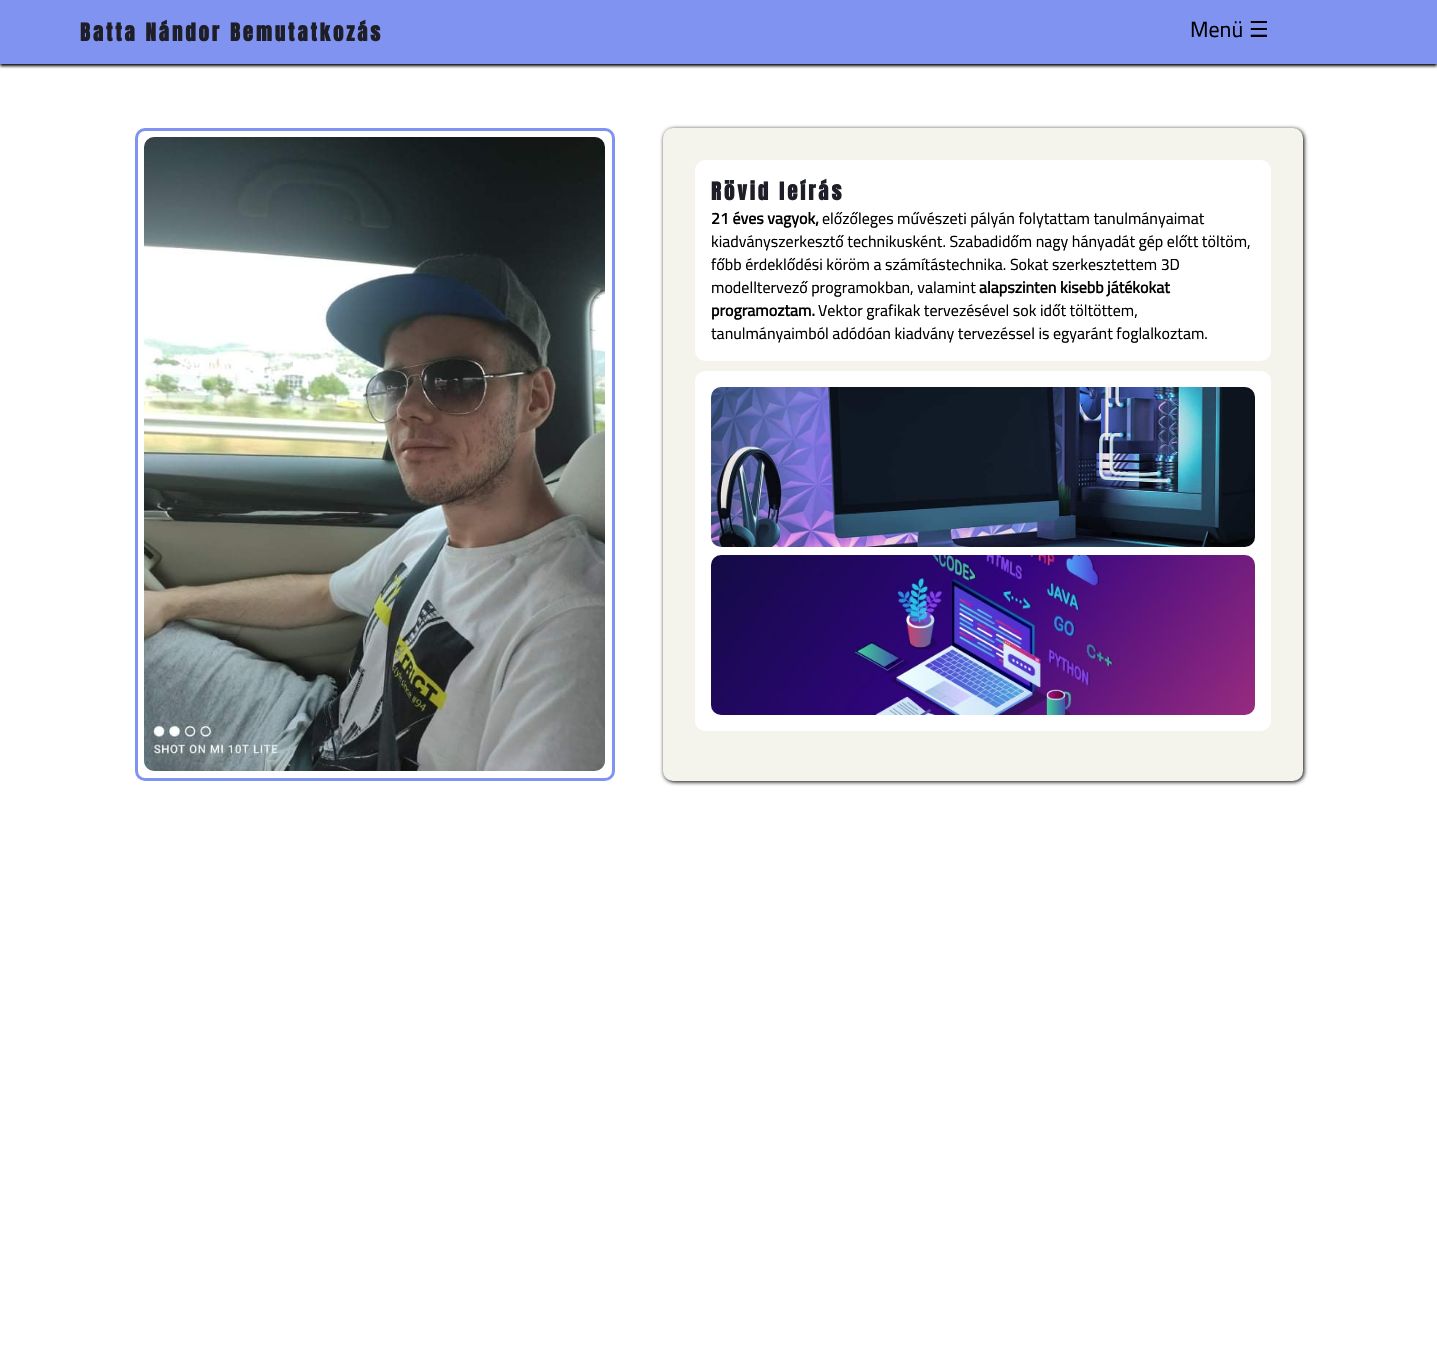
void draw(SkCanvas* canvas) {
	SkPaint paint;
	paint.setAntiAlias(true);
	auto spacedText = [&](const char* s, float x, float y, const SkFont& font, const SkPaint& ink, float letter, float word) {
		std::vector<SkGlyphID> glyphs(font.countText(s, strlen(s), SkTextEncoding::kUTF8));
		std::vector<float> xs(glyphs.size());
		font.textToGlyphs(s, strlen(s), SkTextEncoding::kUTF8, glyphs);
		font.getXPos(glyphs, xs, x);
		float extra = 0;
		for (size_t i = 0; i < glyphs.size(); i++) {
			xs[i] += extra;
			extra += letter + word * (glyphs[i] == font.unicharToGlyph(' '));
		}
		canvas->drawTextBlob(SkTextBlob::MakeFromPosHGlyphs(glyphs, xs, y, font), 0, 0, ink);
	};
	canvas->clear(0xffffffff);
	paint.setColor(0xff000000);
	paint.setMaskFilter(SkMaskFilter::MakeBlur(kNormal_SkBlurStyle, 1.5));
	canvas->drawRect(SkRect::MakeXYWH(0, 2, 1437, 64), paint);
	paint.setMaskFilter(nullptr);
	paint.setColor(0xff8093f1);
	canvas->drawRect(SkRect::MakeXYWH(0, 0, 1437, 64), paint);
	SkFont f1(fontMgr->matchFamilyStyle("Anton", SkFontStyle::Bold()), 20.75);
	f1.setSubpixel(true);
	paint.setColor(0xff1d1e27);
	spacedText("Batta Nándor Bemutatkozás", 80, 41, f1, paint, 3, 0);
	SkFont f2(fontMgr->matchFamilyStyle("Cairo", SkFontStyle::Normal()), 22);
	f2.setSubpixel(true);
	paint.setColor(0xff000000);
	canvas->drawString("Menü", 1190, 37, f2, paint);
	SkFont f3(fontMgr->matchFamilyStyle("DejaVu Sans", SkFontStyle::Normal()), 22);
	f3.setSubpixel(true);
	canvas->drawString("☰", 1249, 37, f3, paint);
	paint.setStroke(true);
	paint.setStrokeWidth(3);
	paint.setColor(0xff8093f1);
	canvas->drawRoundRect(SkRect::MakeXYWH(136.5, 129.5, 477, 650), 8.5, 8.5, paint);
	canvas->drawImageRect(SkImages::DeferredFromEncodedData(SkData::MakeFromFileName("img1.png")), SkRect::MakeXYWH(144, 137, 461, 634), SkSamplingOptions());
	paint.setStroke(false);
	paint.setColor(0xff000000);
	paint.setMaskFilter(SkMaskFilter::MakeBlur(kNormal_SkBlurStyle, 2));
	canvas->drawRoundRect(SkRect::MakeXYWH(664, 129, 640, 653), 10, 10, paint);
	paint.setMaskFilter(nullptr);
	paint.setColor(0xfff4f4ed);
	canvas->drawRoundRect(SkRect::MakeXYWH(663, 128, 640, 653), 10, 10, paint);
	paint.setColor(0xffffffff);
	canvas->drawRoundRect(SkRect::MakeXYWH(695, 160, 576, 201), 10, 10, paint);
	paint.setColor(0xff1d1e27);
	spacedText("Rövid leírás", 711, 200, f1, paint, 3, 0);
	SkFont f4(fontMgr->matchFamilyStyle("Cairo", SkFontStyle::Bold()), 16);
	f4.setSubpixel(true);
	paint.setColor(0xff000000);
	canvas->drawString("21 éves vagyok,", 711, 224, f4, paint);
	SkFont f5(fontMgr->matchFamilyStyle("Cairo", SkFontStyle::Normal()), 16);
	f5.setSubpixel(true);
	canvas->drawString("előzőleges művészeti pályán folytattam tanulmányaimat", 822, 224, f5, paint);
	canvas->drawString("kiadványszerkesztő technikusként. Szabadidőm nagy hányadát gép előtt töltöm,", 711, 247, f5, paint);
	canvas->drawString("főbb érdeklődési köröm a számítástechnika. Sokat szerkesztettem 3D", 711, 270, f5, paint);
	canvas->drawString("modelltervező programokban, valamint", 711, 293, f5, paint);
	canvas->drawString("alapszinten kisebb játékokat", 979, 293, f4, paint);
	canvas->drawString("programoztam.", 711, 316, f4, paint);
	canvas->drawString("Vektor grafikak tervezésével sok időt töltöttem,", 818, 316, f5, paint);
	canvas->drawString("tanulmányaimból adódóan kiadvány tervezéssel is egyaránt foglalkoztam.", 711, 339, f5, paint);
	paint.setColor(0xffffffff);
	canvas->drawRoundRect(SkRect::MakeXYWH(695, 371, 576, 360), 10, 10, paint);
	canvas->drawImageRect(SkImages::DeferredFromEncodedData(SkData::MakeFromFileName("img2.png")), SkRect::MakeXYWH(711, 387, 544, 160), SkSamplingOptions());
	canvas->drawImageRect(SkImages::DeferredFromEncodedData(SkData::MakeFromFileName("img3.png")), SkRect::MakeXYWH(711, 555, 544, 160), SkSamplingOptions());
}
